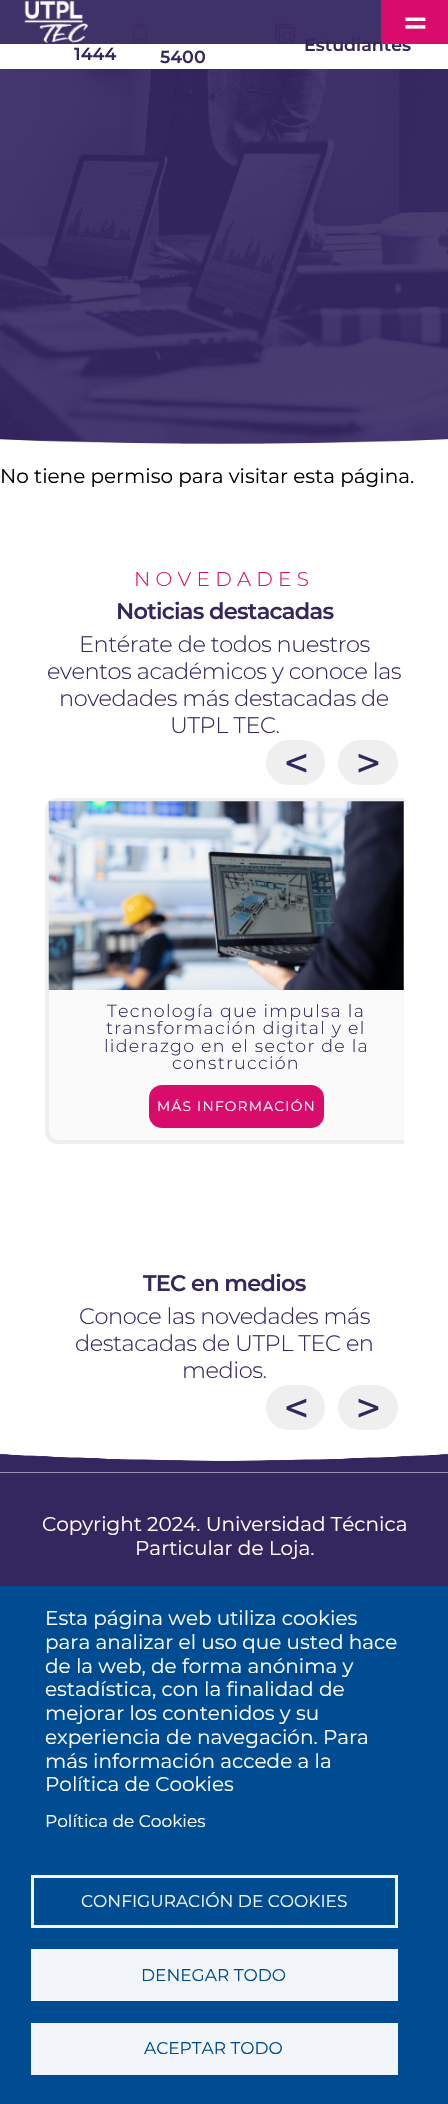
void draw(SkCanvas* canvas) {
	SkPaint paint;
	paint.setAntiAlias(true);
	auto spacedText = [&](const char* s, float x, float y, const SkFont& font, const SkPaint& ink, float letter, float word) {
		std::vector<SkGlyphID> glyphs(font.countText(s, strlen(s), SkTextEncoding::kUTF8));
		std::vector<float> xs(glyphs.size());
		font.textToGlyphs(s, strlen(s), SkTextEncoding::kUTF8, glyphs);
		font.getXPos(glyphs, xs, x);
		float extra = 0;
		for (size_t i = 0; i < glyphs.size(); i++) {
			xs[i] += extra;
			extra += letter + word * (glyphs[i] == font.unicharToGlyph(' '));
		}
		canvas->drawTextBlob(SkTextBlob::MakeFromPosHGlyphs(glyphs, xs, y, font), 0, 0, ink);
	};
	auto svgPath = [&](const char* data, bool evenOdd = false) {
		SkPath result = *SkParsePath::FromSVGString(data);
		if (evenOdd) result.setFillType(SkPathFillType::kEvenOdd);
		return result;
	};
	canvas->clear(0xffffffff);
	canvas->drawImageRect(SkImages::DeferredFromEncodedData(SkData::MakeFromFileName("img2.png")), SkRect::MakeXYWH(275, 23, 20, 21), SkSamplingOptions());
	SkFont f1(fontMgr->matchFamilyStyle("Montserrat", SkFontStyle(600, SkFontStyle::kNormal_Width, SkFontStyle::kUpright_Slant)), 17.5);
	f1.setSubpixel(true);
	paint.setColor(0xff342760);
	canvas->drawString("Estudiantes", 304, 51, f1, paint);
	canvas->drawImageRect(SkImages::DeferredFromEncodedData(SkData::MakeFromFileName("img3.png")), SkRect::MakeXYWH(45, 23, 19, 20), SkSamplingOptions());
	canvas->drawImageRect(SkImages::DeferredFromEncodedData(SkData::MakeFromFileName("img4.png")), SkRect::MakeXYWH(132, 23, 16, 21), SkSamplingOptions());
	paint.setColor(0xf2342760);
	canvas->drawRect(SkRect::MakeXYWH(0, 0, 381, 44), paint);
	canvas->drawImageRect(SkImages::DeferredFromEncodedData(SkData::MakeFromFileName("img1.png")), SkRect::MakeXYWH(24, 0, 64, 43), SkSamplingOptions());
	paint.setColor(0xffda0c6b);
	canvas->drawRect(SkRect::MakeXYWH(381, 0, 67, 44), paint);
	SkFont f2(fontMgr->matchFamilyStyle("DejaVu Sans Mono", SkFontStyle::Normal()), 38);
	f2.setSubpixel(true);
	paint.setColor(0xffffffff);
	canvas->drawString("=", 404, 35, f2, paint);
	paint.setColor(0xff342760);
	canvas->drawString("1444", 74, 60, f1, paint);
	canvas->drawString("5400", 160, 63, f1, paint);
	canvas->drawImageRect(SkImages::DeferredFromEncodedData(SkData::MakeFromFileName("img5.png")), SkRect::MakeXYWH(0, 69, 448, 375), SkSamplingOptions());
	SkFont f3(fontMgr->matchFamilyStyle("Montserrat", SkFontStyle::Normal()), 20);
	f3.setSubpixel(true);
	paint.setColor(0xff000000);
	canvas->drawString("No tiene permiso para visitar esta página.", 0, 483, f3, paint);
	SkFont f4(fontMgr->matchFamilyStyle("Montserrat", SkFontStyle(300, SkFontStyle::kNormal_Width, SkFontStyle::kUpright_Slant)), 20);
	f4.setSubpixel(true);
	paint.setColor(0xffda0c6b);
	spacedText("NOVEDADES", 134, 586, f4, paint, 5.25, 0);
	SkFont f5(fontMgr->matchFamilyStyle("Montserrat", SkFontStyle(600, SkFontStyle::kNormal_Width, SkFontStyle::kUpright_Slant)), 22.5);
	f5.setSubpixel(true);
	paint.setColor(0xff342760);
	spacedText("Noticias destacadas", 116, 619, f5, paint, -0.75, 0);
	SkFont f6(fontMgr->matchFamilyStyle("Montserrat", SkFontStyle(300, SkFontStyle::kNormal_Width, SkFontStyle::kUpright_Slant)), 22.5);
	f6.setSubpixel(true);
	spacedText("Entérate de todos nuestros", 79, 652, f6, paint, -0.45, 0);
	spacedText("eventos académicos y conoce las", 47, 679, f6, paint, -0.45, 0);
	spacedText("novedades más destacadas de", 59, 706, f6, paint, -0.45, 0);
	spacedText("UTPL TEC.", 170, 733, f6, paint, -0.45, 0);
	paint.setColor(0xffefefef);
	canvas->drawRoundRect(SkRect::MakeXYWH(266, 740, 59, 45), 22.5, 22.5, paint);
	paint.setColor(0xff342760);
	spacedText("<", 285, 775, f2, paint, -0.45, 0);
	paint.setColor(0xffefefef);
	canvas->drawRoundRect(SkRect::MakeXYWH(338, 740, 60, 45), 22.5, 22.5, paint);
	paint.setColor(0xff342760);
	spacedText(">", 357, 775, f2, paint, -0.45, 0);
	paint.setColor(0xfffafafa);
	canvas->drawPath(svgPath("M58 798H404V1144H58C51 1144 45 1138 45 1131V811C45 804 51 798 58 798Z"), paint);
	canvas->save();
	canvas->clipRect(SkRect::MakeXYWH(45, 798, 359, 346));
	paint.setStroke(true);
	paint.setStrokeWidth(4);
	paint.setColor(0xffeeeeee);
	canvas->drawRoundRect(SkRect::MakeXYWH(47, 800, 379, 342), 11, 11, paint);
	canvas->restore();
	canvas->drawImageRect(SkImages::DeferredFromEncodedData(SkData::MakeFromFileName("img6.png")), SkRect::MakeXYWH(48, 801, 356, 189), SkSamplingOptions());
	SkFont f7(fontMgr->matchFamilyStyle("Montserrat", SkFontStyle(300, SkFontStyle::kNormal_Width, SkFontStyle::kUpright_Slant)), 17.5);
	f7.setSubpixel(true);
	paint.setStroke(false);
	paint.setColor(0xff342760);
	spacedText("Tecnología que impulsa la", 107, 1017, f7, paint, 1.25, 0);
	spacedText("transformación digital y el", 106, 1034, f7, paint, 1.25, 0);
	spacedText("liderazgo en el sector de la", 104, 1052, f7, paint, 1.25, 0);
	spacedText("construcción", 172, 1069, f7, paint, 1.25, 0);
	paint.setColor(0xffda0c6b);
	canvas->drawRoundRect(SkRect::MakeXYWH(149, 1085, 175, 43), 13, 13, paint);
	SkFont f8(fontMgr->matchFamilyStyle("Montserrat", SkFontStyle::Normal()), 13.75);
	f8.setSubpixel(true);
	paint.setColor(0xffffffff);
	spacedText("MÁS INFORMACIÓN", 157, 1111, f8, paint, 1.25, 0);
	paint.setColor(0xff342760);
	spacedText("TEC en medios", 143, 1291, f5, paint, -0.75, 0);
	spacedText("Conoce las novedades más", 79, 1324, f6, paint, -0.45, 0);
	spacedText("destacadas de UTPL TEC en", 75, 1351, f6, paint, -0.45, 0);
	spacedText("medios.", 182, 1378, f6, paint, -0.45, 0);
	paint.setColor(0xffefefef);
	canvas->drawRoundRect(SkRect::MakeXYWH(266, 1385, 59, 45), 22.5, 22.5, paint);
	paint.setColor(0xff342760);
	spacedText("<", 285, 1420, f2, paint, -0.45, 0);
	paint.setColor(0xffefefef);
	canvas->drawRoundRect(SkRect::MakeXYWH(338, 1385, 60, 45), 22.5, 22.5, paint);
	paint.setColor(0xff342760);
	spacedText(">", 357, 1420, f2, paint, -0.45, 0);
	paint.setColor(0xff004c93);
	canvas->drawRect(SkRect::MakeXYWH(0, 1586, 448, 518), paint);
	paint.setColor(0xffffffff);
	canvas->drawString("Esta página web utiliza cookies", 45, 1625, f3, paint);
	canvas->drawString("para analizar el uso que usted hace", 45, 1649, f3, paint);
	canvas->drawString("de la web, de forma anónima y", 45, 1673, f3, paint);
	canvas->drawString("estadística, con la finalidad de", 45, 1696, f3, paint);
	canvas->drawString("mejorar los contenidos y su", 45, 1720, f3, paint);
	canvas->drawString("experiencia de navegación. Para", 45, 1744, f3, paint);
	canvas->drawString("más información accede a la", 45, 1768, f3, paint);
	canvas->drawString("Política de Cookies", 45, 1791, f3, paint);
	SkFont f9(fontMgr->matchFamilyStyle("Montserrat", SkFontStyle::Normal()), 17);
	f9.setSubpixel(true);
	canvas->drawString("Política de Cookies", 45, 1827, f9, paint);
	paint.setStroke(true);
	paint.setStrokeWidth(3);
	paint.setColor(0xfff2f6fa);
	canvas->drawRect(SkRect::MakeXYWH(32.5, 1876.5, 364, 50), paint);
	paint.setStroke(false);
	canvas->drawString("CONFIGURACIÓN DE COOKIES", 81, 1907, f9, paint);
	canvas->drawRect(SkRect::MakeXYWH(31, 1949, 367, 52), paint);
	paint.setColor(0xff004c93);
	canvas->drawString("DENEGAR TODO", 141, 1981, f9, paint);
	paint.setColor(0xfff2f6fa);
	canvas->drawRect(SkRect::MakeXYWH(31, 2023, 367, 52), paint);
	paint.setColor(0xff004c93);
	canvas->drawString("ACEPTAR TODO", 144, 2054, f9, paint);
	canvas->drawImageRect(SkImages::DeferredFromEncodedData(SkData::MakeFromFileName("img7.png")), SkRect::MakeXYWH(0, 1453, 448, 20), SkSamplingOptions());
	paint.setColor(0xff342760);
	canvas->drawRect(SkRect::MakeXYWH(0, 1473, 448, 113), paint);
	paint.setColor(0xffffffff);
	canvas->drawString("Copyright 2024. Universidad Técnica", 42, 1531, f3, paint);
	canvas->drawString("Particular de Loja.", 135, 1555, f3, paint);
}
